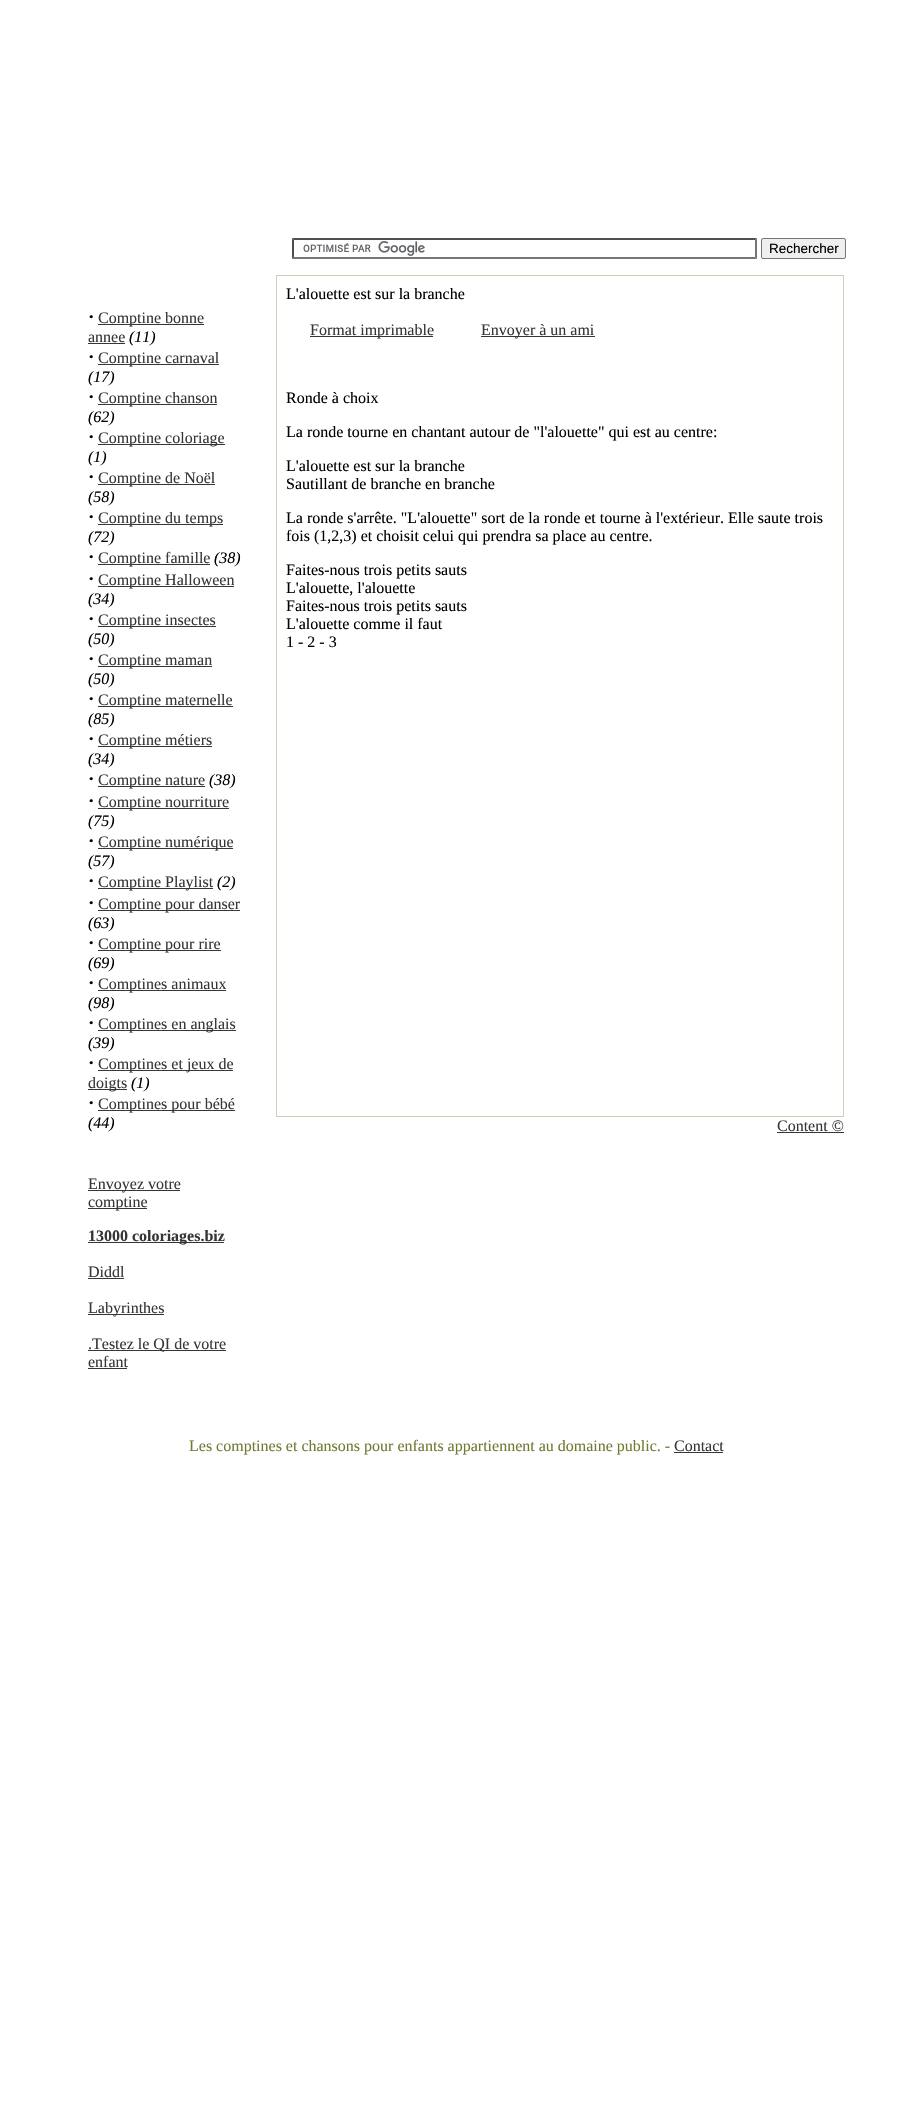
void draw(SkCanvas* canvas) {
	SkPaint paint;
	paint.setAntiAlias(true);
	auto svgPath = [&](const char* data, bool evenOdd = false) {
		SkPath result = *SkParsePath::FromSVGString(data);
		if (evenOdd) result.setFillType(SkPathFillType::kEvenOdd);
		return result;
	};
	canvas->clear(0xffffffff);
	canvas->drawImageRect(SkImages::DeferredFromEncodedData(SkData::MakeFromFileName("img1.png")), SkRect::MakeXYWH(303, 241, 122, 15), SkSamplingOptions());
	paint.setColor(0xff4f4f4f);
	canvas->drawPath(svgPath("M292 238H757L755 240H294Z"), paint);
	paint.setColor(0xff767676);
	canvas->drawPath(svgPath("M757 238V259L755 257V240Z"), paint);
	canvas->drawPath(svgPath("M757 259H292L294 257H755Z"), paint);
	paint.setColor(0xff4f4f4f);
	canvas->drawPath(svgPath("M292 259V238L294 240V257Z"), paint);
	paint.setColor(0xffefefef);
	canvas->drawRoundRect(SkRect::MakeXYWH(761.5, 238.5, 84, 20), 1.5, 1.5, paint);
	paint.setStroke(true);
	paint.setStrokeWidth(1);
	paint.setColor(0xff767676);
	canvas->drawRoundRect(SkRect::MakeXYWH(761.5, 238.5, 84, 20), 1.5, 1.5, paint);
	SkFont f1(fontMgr->matchFamilyStyle("Liberation Sans", SkFontStyle::Normal()), 13.5);
	f1.setSubpixel(true);
	paint.setStroke(false);
	paint.setColor(0xff000000);
	canvas->drawString("Rechercher", 769, 253, f1, paint);
	SkFont f2(fontMgr->matchFamilyStyle("Liberation Serif", SkFontStyle::Bold()), 19);
	f2.setSubpixel(true);
	canvas->drawString("·", 88, 323, f2, paint);
	paint.setColor(0xff363636);
	canvas->drawRect(SkRect::MakeXYWH(98, 324, 106, 1), paint);
	SkFont f3(fontMgr->matchFamilyStyle("Liberation Serif", SkFontStyle::Normal()), 16);
	f3.setSubpixel(true);
	canvas->drawString("Comptine bonne", 98, 323, f3, paint);
	canvas->drawString("annee", 88, 342, f3, paint);
	canvas->drawRect(SkRect::MakeXYWH(88, 343, 37, 1), paint);
	SkFont f4(fontMgr->matchFamilyStyle("Liberation Serif", SkFontStyle::Italic()), 16);
	f4.setSubpixel(true);
	paint.setColor(0xff000000);
	canvas->drawString("(11)", 129, 342, f4, paint);
	canvas->drawString("·", 88, 363, f2, paint);
	paint.setColor(0xff363636);
	canvas->drawRect(SkRect::MakeXYWH(98, 364, 121, 1), paint);
	canvas->drawString("Comptine carnaval", 98, 363, f3, paint);
	paint.setColor(0xff000000);
	canvas->drawString("(17)", 88, 382, f4, paint);
	canvas->drawString("·", 88, 403, f2, paint);
	paint.setColor(0xff363636);
	canvas->drawRect(SkRect::MakeXYWH(98, 404, 119, 1), paint);
	canvas->drawString("Comptine chanson", 98, 403, f3, paint);
	paint.setColor(0xff000000);
	canvas->drawString("(62)", 88, 422, f4, paint);
	canvas->drawString("·", 88, 443, f2, paint);
	paint.setColor(0xff363636);
	canvas->drawRect(SkRect::MakeXYWH(98, 444, 127, 1), paint);
	canvas->drawString("Comptine coloriage", 98, 443, f3, paint);
	paint.setColor(0xff000000);
	canvas->drawString("(1)", 88, 462, f4, paint);
	canvas->drawString("·", 88, 483, f2, paint);
	paint.setColor(0xff363636);
	canvas->drawRect(SkRect::MakeXYWH(98, 484, 117, 1), paint);
	canvas->drawString("Comptine de Noël", 98, 483, f3, paint);
	paint.setColor(0xff000000);
	canvas->drawString("(58)", 88, 502, f4, paint);
	canvas->drawString("·", 88, 523, f2, paint);
	paint.setColor(0xff363636);
	canvas->drawRect(SkRect::MakeXYWH(98, 524, 125, 1), paint);
	canvas->drawString("Comptine du temps", 98, 523, f3, paint);
	paint.setColor(0xff000000);
	canvas->drawString("(72)", 88, 542, f4, paint);
	canvas->drawString("·", 88, 563, f2, paint);
	paint.setColor(0xff363636);
	canvas->drawRect(SkRect::MakeXYWH(98, 564, 112, 1), paint);
	canvas->drawString("Comptine famille", 98, 563, f3, paint);
	paint.setColor(0xff000000);
	canvas->drawString("(38)", 214, 563, f4, paint);
	canvas->drawString("·", 88, 585, f2, paint);
	paint.setColor(0xff363636);
	canvas->drawRect(SkRect::MakeXYWH(98, 586, 136, 1), paint);
	canvas->drawString("Comptine Halloween", 98, 585, f3, paint);
	paint.setColor(0xff000000);
	canvas->drawString("(34)", 88, 604, f4, paint);
	canvas->drawString("·", 88, 625, f2, paint);
	paint.setColor(0xff363636);
	canvas->drawRect(SkRect::MakeXYWH(98, 626, 118, 1), paint);
	canvas->drawString("Comptine insectes", 98, 625, f3, paint);
	paint.setColor(0xff000000);
	canvas->drawString("(50)", 88, 644, f4, paint);
	canvas->drawString("·", 88, 665, f2, paint);
	paint.setColor(0xff363636);
	canvas->drawRect(SkRect::MakeXYWH(98, 666, 114, 1), paint);
	canvas->drawString("Comptine maman", 98, 665, f3, paint);
	paint.setColor(0xff000000);
	canvas->drawString("(50)", 88, 684, f4, paint);
	canvas->drawString("·", 88, 705, f2, paint);
	paint.setColor(0xff363636);
	canvas->drawRect(SkRect::MakeXYWH(98, 706, 135, 1), paint);
	canvas->drawString("Comptine maternelle", 98, 705, f3, paint);
	paint.setColor(0xff000000);
	canvas->drawString("(85)", 88, 724, f4, paint);
	canvas->drawString("·", 88, 745, f2, paint);
	paint.setColor(0xff363636);
	canvas->drawRect(SkRect::MakeXYWH(98, 746, 114, 1), paint);
	canvas->drawString("Comptine métiers", 98, 745, f3, paint);
	paint.setColor(0xff000000);
	canvas->drawString("(34)", 88, 764, f4, paint);
	canvas->drawString("·", 88, 785, f2, paint);
	paint.setColor(0xff363636);
	canvas->drawRect(SkRect::MakeXYWH(98, 786, 107, 1), paint);
	canvas->drawString("Comptine nature", 98, 785, f3, paint);
	paint.setColor(0xff000000);
	canvas->drawString("(38)", 209, 785, f4, paint);
	canvas->drawString("·", 88, 807, f2, paint);
	paint.setColor(0xff363636);
	canvas->drawRect(SkRect::MakeXYWH(98, 808, 131, 1), paint);
	canvas->drawString("Comptine nourriture", 98, 807, f3, paint);
	paint.setColor(0xff000000);
	canvas->drawString("(75)", 88, 826, f4, paint);
	canvas->drawString("·", 88, 847, f2, paint);
	paint.setColor(0xff363636);
	canvas->drawRect(SkRect::MakeXYWH(98, 848, 135, 1), paint);
	canvas->drawString("Comptine numérique", 98, 847, f3, paint);
	paint.setColor(0xff000000);
	canvas->drawString("(57)", 88, 866, f4, paint);
	canvas->drawString("·", 88, 887, f2, paint);
	paint.setColor(0xff363636);
	canvas->drawRect(SkRect::MakeXYWH(98, 888, 115, 1), paint);
	canvas->drawString("Comptine Playlist", 98, 887, f3, paint);
	paint.setColor(0xff000000);
	canvas->drawString("(2)", 217, 887, f4, paint);
	canvas->drawString("·", 88, 909, f2, paint);
	paint.setColor(0xff363636);
	canvas->drawRect(SkRect::MakeXYWH(98, 910, 142, 1), paint);
	canvas->drawString("Comptine pour danser", 98, 909, f3, paint);
	paint.setColor(0xff000000);
	canvas->drawString("(63)", 88, 928, f4, paint);
	canvas->drawString("·", 88, 949, f2, paint);
	paint.setColor(0xff363636);
	canvas->drawRect(SkRect::MakeXYWH(98, 950, 123, 1), paint);
	canvas->drawString("Comptine pour rire", 98, 949, f3, paint);
	paint.setColor(0xff000000);
	canvas->drawString("(69)", 88, 968, f4, paint);
	canvas->drawString("·", 88, 989, f2, paint);
	paint.setColor(0xff363636);
	canvas->drawRect(SkRect::MakeXYWH(98, 990, 128, 1), paint);
	canvas->drawString("Comptines animaux", 98, 989, f3, paint);
	paint.setColor(0xff000000);
	canvas->drawString("(98)", 88, 1008, f4, paint);
	canvas->drawString("·", 88, 1029, f2, paint);
	paint.setColor(0xff363636);
	canvas->drawRect(SkRect::MakeXYWH(98, 1030, 138, 1), paint);
	canvas->drawString("Comptines en anglais", 98, 1029, f3, paint);
	paint.setColor(0xff000000);
	canvas->drawString("(39)", 88, 1048, f4, paint);
	canvas->drawString("·", 88, 1069, f2, paint);
	paint.setColor(0xff363636);
	canvas->drawRect(SkRect::MakeXYWH(98, 1070, 135, 1), paint);
	canvas->drawString("Comptines et jeux de", 98, 1069, f3, paint);
	canvas->drawRect(SkRect::MakeXYWH(88, 1089, 39, 1), paint);
	canvas->drawString("doigts", 88, 1088, f3, paint);
	paint.setColor(0xff000000);
	canvas->drawString("(1)", 131, 1088, f4, paint);
	canvas->drawString("·", 88, 1109, f2, paint);
	paint.setColor(0xff363636);
	canvas->drawRect(SkRect::MakeXYWH(98, 1110, 137, 1), paint);
	canvas->drawString("Comptines pour bébé", 98, 1109, f3, paint);
	paint.setColor(0xff000000);
	canvas->drawString("(44)", 88, 1128, f4, paint);
	paint.setColor(0xff363636);
	canvas->drawRect(SkRect::MakeXYWH(88, 1190, 92, 1), paint);
	canvas->drawString("Envoyez votre", 88, 1189, f3, paint);
	canvas->drawRect(SkRect::MakeXYWH(88, 1208, 59, 1), paint);
	canvas->drawString("comptine", 88, 1207, f3, paint);
	canvas->drawRect(SkRect::MakeXYWH(88, 1242, 136, 1), paint);
	SkFont f5(fontMgr->matchFamilyStyle("Liberation Serif", SkFontStyle::Bold()), 16);
	f5.setSubpixel(true);
	canvas->drawString("13000 coloriages.biz", 88, 1241, f5, paint);
	canvas->drawString("Diddl", 88, 1277, f3, paint);
	canvas->drawRect(SkRect::MakeXYWH(88, 1278, 36, 1), paint);
	canvas->drawRect(SkRect::MakeXYWH(88, 1314, 76, 1), paint);
	canvas->drawString("Labyrinthes", 88, 1313, f3, paint);
	canvas->drawRect(SkRect::MakeXYWH(88, 1350, 138, 1), paint);
	canvas->drawString(".Testez le QI de votre", 88, 1349, f3, paint);
	canvas->drawString("enfant", 88, 1367, f3, paint);
	canvas->drawRect(SkRect::MakeXYWH(88, 1368, 39, 1), paint);
	paint.setColor(0xffcfcfbb);
	canvas->drawRect(SkRect::MakeXYWH(276, 275, 568, 842), paint);
	paint.setColor(0xffffffff);
	canvas->drawRect(SkRect::MakeXYWH(277, 276, 566, 840), paint);
	paint.setColor(0xff000000);
	canvas->drawString("L'alouette est sur la branche", 286, 299, f3, paint);
	paint.setColor(0xff363636);
	canvas->drawRect(SkRect::MakeXYWH(310, 336, 123, 1), paint);
	canvas->drawString("Format imprimable", 310, 335, f3, paint);
	canvas->drawRect(SkRect::MakeXYWH(481, 336, 114, 1), paint);
	canvas->drawString("Envoyer à un ami", 481, 335, f3, paint);
	paint.setColor(0xff000000);
	canvas->drawString("Ronde à choix", 286, 403, f3, paint);
	canvas->drawString("La ronde tourne en chantant autour de \"l'alouette\" qui est au centre:", 286, 437, f3, paint);
	canvas->drawString("L'alouette est sur la branche", 286, 471, f3, paint);
	canvas->drawString("Sautillant de branche en branche", 286, 489, f3, paint);
	canvas->drawString("La ronde s'arrête. \"L'alouette\" sort de la ronde et tourne à l'extérieur. Elle saute trois", 286, 523, f3, paint);
	canvas->drawString("fois (1,2,3) et choisit celui qui prendra sa place au centre.", 286, 541, f3, paint);
	canvas->drawString("Faites-nous trois petits sauts", 286, 575, f3, paint);
	canvas->drawString("L'alouette, l'alouette", 286, 593, f3, paint);
	canvas->drawString("Faites-nous trois petits sauts", 286, 611, f3, paint);
	canvas->drawString("L'alouette comme il faut", 286, 629, f3, paint);
	canvas->drawString("1 - 2 - 3", 286, 647, f3, paint);
	paint.setColor(0xff363636);
	canvas->drawString("Content ©", 777, 1131, f3, paint);
	canvas->drawRect(SkRect::MakeXYWH(777, 1132, 67, 1), paint);
	paint.setColor(0xff737832);
	canvas->drawString("Les comptines et chansons pour enfants appartiennent au domaine public. -", 189, 1451, f3, paint);
	paint.setColor(0xff363636);
	canvas->drawString("Contact", 674, 1451, f3, paint);
	canvas->drawRect(SkRect::MakeXYWH(674, 1452, 49, 1), paint);
}
